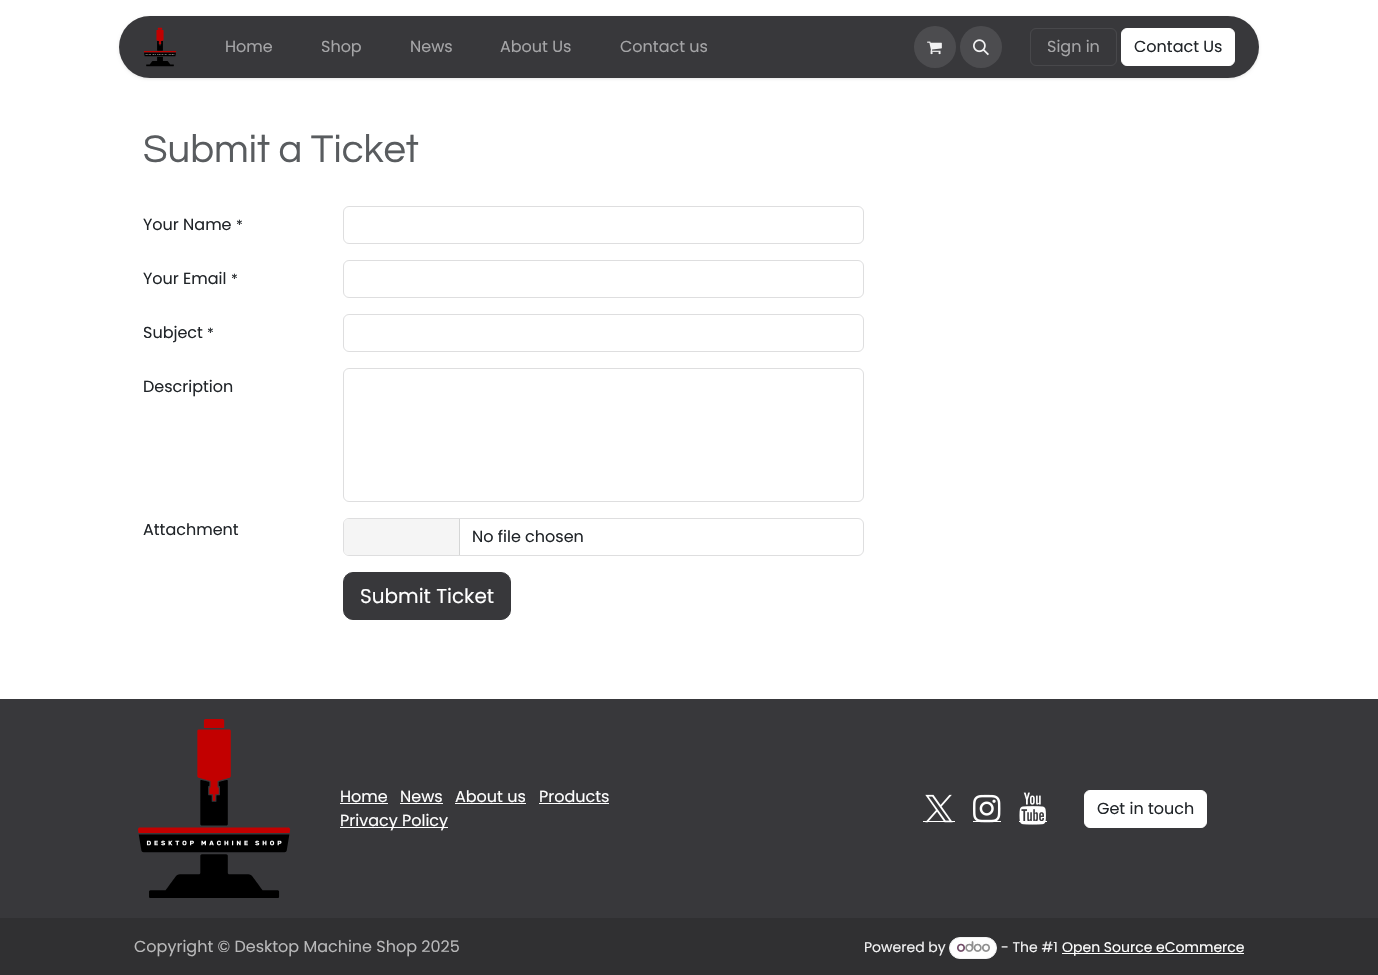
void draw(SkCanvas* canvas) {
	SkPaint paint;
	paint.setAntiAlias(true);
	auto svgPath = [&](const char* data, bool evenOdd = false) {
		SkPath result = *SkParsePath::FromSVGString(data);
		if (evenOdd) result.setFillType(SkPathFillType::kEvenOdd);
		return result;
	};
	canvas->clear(0xffffffff);
	paint.setColor(0x1a000000);
	paint.setMaskFilter(SkMaskFilter::MakeBlur(kNormal_SkBlurStyle, 1.5));
	canvas->drawRoundRect(SkRect::MakeXYWH(119, 17, 1140, 62), 31, 31, paint);
	paint.setMaskFilter(nullptr);
	paint.setColor(0xff38383b);
	canvas->drawRoundRect(SkRect::MakeXYWH(119, 16, 1140, 62), 31, 31, paint);
	canvas->drawImageRect(SkImages::DeferredFromEncodedData(SkData::MakeFromFileName("img1.png")), SkRect::MakeXYWH(143, 27, 34, 40), SkSamplingOptions());
	SkFont f1(fontMgr->matchFamilyStyle("Poppins", SkFontStyle::Normal()), 16);
	f1.setSubpixel(true);
	paint.setColor(0xffa5a5a7);
	canvas->drawString("Home", 225, 52, f1, paint);
	canvas->drawString("Shop", 321, 52, f1, paint);
	canvas->drawString("News", 410, 52, f1, paint);
	canvas->drawString("About Us", 500, 52, f1, paint);
	canvas->drawString("Contact us", 620, 52, f1, paint);
	paint.setColor(0xff4c4c4f);
	canvas->drawCircle(935, 47, 21, paint);
	canvas->drawImageRect(SkImages::DeferredFromEncodedData(SkData::MakeFromFileName("img2.png")), SkRect::MakeXYWH(927, 41, 15, 14), SkSamplingOptions());
	canvas->drawCircle(981, 47, 21, paint);
	canvas->drawImageRect(SkImages::DeferredFromEncodedData(SkData::MakeFromFileName("img3.png")), SkRect::MakeXYWH(973, 39, 16, 17), SkSamplingOptions());
	paint.setStroke(true);
	paint.setStrokeWidth(1);
	paint.setColor(0xff48484b);
	canvas->drawRoundRect(SkRect::MakeXYWH(1030.5, 28.5, 86, 37), 5.5, 5.5, paint);
	paint.setStroke(false);
	paint.setColor(0xffa5a5a7);
	canvas->drawString("Sign in", 1047, 52, f1, paint);
	paint.setColor(0xffffffff);
	canvas->drawRoundRect(SkRect::MakeXYWH(1121.5, 28.5, 113, 37), 5.5, 5.5, paint);
	paint.setStroke(true);
	canvas->drawRoundRect(SkRect::MakeXYWH(1121.5, 28.5, 113, 37), 5.5, 5.5, paint);
	paint.setStroke(false);
	paint.setColor(0xff212529);
	canvas->drawString("Contact Us", 1134, 52, f1, paint);
	SkFont f2(fontMgr->matchFamilyStyle("Questrial", SkFontStyle::Normal()), 40);
	f2.setSubpixel(true);
	paint.setColor(0xff595c5f);
	canvas->drawString("Submit a Ticket", 143, 162, f2, paint);
	paint.setColor(0xff212529);
	canvas->drawString("Your Name", 143, 230, f1, paint);
	SkFont f3(fontMgr->matchFamilyStyle("Poppins", SkFontStyle::Normal()), 14);
	f3.setSubpixel(true);
	canvas->drawString("*", 236, 230, f3, paint);
	paint.setStroke(true);
	paint.setColor(0xffdededf);
	canvas->drawRoundRect(SkRect::MakeXYWH(343.5, 206.5, 520, 37), 5.5, 5.5, paint);
	paint.setStroke(false);
	paint.setColor(0xff212529);
	canvas->drawString("Your Email", 143, 284, f1, paint);
	canvas->drawString("*", 231, 284, f3, paint);
	paint.setStroke(true);
	paint.setColor(0xffdededf);
	canvas->drawRoundRect(SkRect::MakeXYWH(343.5, 260.5, 520, 37), 5.5, 5.5, paint);
	paint.setStroke(false);
	paint.setColor(0xff212529);
	canvas->drawString("Subject", 143, 338, f1, paint);
	canvas->drawString("*", 207, 338, f3, paint);
	paint.setStroke(true);
	paint.setColor(0xffdededf);
	canvas->drawRoundRect(SkRect::MakeXYWH(343.5, 314.5, 520, 37), 5.5, 5.5, paint);
	paint.setStroke(false);
	paint.setColor(0xff212529);
	canvas->drawString("Description", 143, 392, f1, paint);
	paint.setStroke(true);
	paint.setColor(0xffdededf);
	canvas->drawRoundRect(SkRect::MakeXYWH(343.5, 368.5, 520, 133), 5.5, 5.5, paint);
	paint.setStroke(false);
	paint.setColor(0xff212529);
	canvas->drawString("Attachment", 143, 535, f1, paint);
	paint.setStroke(true);
	paint.setColor(0xffdededf);
	canvas->drawRoundRect(SkRect::MakeXYWH(343.5, 518.5, 520, 37), 5.5, 5.5, paint);
	paint.setStroke(false);
	paint.setColor(0xfff5f5f5);
	canvas->drawPath(svgPath("M349 519H460V555H349C346 555 344 553 344 550V524C344 521 346 519 349 519Z"), paint);
	paint.setColor(0xffd5d6d6);
	canvas->drawRect(SkRect::MakeXYWH(459, 519, 1, 36), paint);
	paint.setColor(0xff212529);
	canvas->drawString("No file chosen", 472, 542, f1, paint);
	paint.setColor(0xff38383b);
	canvas->drawRoundRect(SkRect::MakeXYWH(343.5, 572.5, 167, 47), 9.5, 9.5, paint);
	paint.setStroke(true);
	canvas->drawRoundRect(SkRect::MakeXYWH(343.5, 572.5, 167, 47), 9.5, 9.5, paint);
	SkFont f4(fontMgr->matchFamilyStyle("Poppins", SkFontStyle::Normal()), 20);
	f4.setSubpixel(true);
	paint.setStroke(false);
	paint.setColor(0xffffffff);
	canvas->drawString("Submit Ticket", 360, 603, f4, paint);
	paint.setColor(0xff38383b);
	canvas->drawRect(SkRect::MakeXYWH(0, 699, 1378, 219), paint);
	canvas->drawImageRect(SkImages::DeferredFromEncodedData(SkData::MakeFromFileName("img4.png")), SkRect::MakeXYWH(138, 719, 153, 179), SkSamplingOptions());
	paint.setColor(0xffffffff);
	canvas->drawString("Home", 340, 802, f1, paint);
	canvas->drawRect(SkRect::MakeXYWH(340, 803, 48, 1), paint);
	canvas->drawString("News", 400, 802, f1, paint);
	canvas->drawRect(SkRect::MakeXYWH(400, 803, 43, 1), paint);
	canvas->drawString("About us", 455, 802, f1, paint);
	canvas->drawRect(SkRect::MakeXYWH(455, 803, 71, 1), paint);
	canvas->drawString("Products", 539, 802, f1, paint);
	canvas->drawRect(SkRect::MakeXYWH(539, 803, 70, 1), paint);
	canvas->drawRect(SkRect::MakeXYWH(340, 827, 108, 1), paint);
	canvas->drawString("Privacy Policy", 340, 826, f1, paint);
	canvas->drawRect(SkRect::MakeXYWH(923, 821, 32, 1), paint);
	canvas->drawImageRect(SkImages::DeferredFromEncodedData(SkData::MakeFromFileName("img5.png")), SkRect::MakeXYWH(925, 794, 28, 29), SkSamplingOptions());
	canvas->drawRect(SkRect::MakeXYWH(973, 821, 28, 1), paint);
	canvas->drawImageRect(SkImages::DeferredFromEncodedData(SkData::MakeFromFileName("img6.png")), SkRect::MakeXYWH(973, 794, 28, 29), SkSamplingOptions());
	canvas->drawRect(SkRect::MakeXYWH(1019, 821, 28, 1), paint);
	canvas->drawImageRect(SkImages::DeferredFromEncodedData(SkData::MakeFromFileName("img7.png")), SkRect::MakeXYWH(1019, 792, 27, 33), SkSamplingOptions());
	canvas->drawRoundRect(SkRect::MakeXYWH(1084.5, 790.5, 122, 37), 5.5, 5.5, paint);
	paint.setStroke(true);
	canvas->drawRoundRect(SkRect::MakeXYWH(1084.5, 790.5, 122, 37), 5.5, 5.5, paint);
	paint.setStroke(false);
	paint.setColor(0xff212529);
	canvas->drawString("Get in touch", 1097, 814, f1, paint);
	paint.setColor(0xff303032);
	canvas->drawRect(SkRect::MakeXYWH(0, 918, 1378, 57), paint);
	paint.setColor(0xffb8b8b9);
	canvas->drawString("Copyright © Desktop Machine Shop 2025", 134, 952, f1, paint);
	paint.setColor(0xfff2f2f3);
	canvas->drawString("Powered by", 864, 952, f3, paint);
	paint.setColor(0xfffefefe);
	canvas->drawRoundRect(SkRect::MakeXYWH(949.5, 937.5, 47, 21), 10.5, 10.5, paint);
	paint.setStroke(true);
	paint.setColor(0xfff2f2f3);
	canvas->drawRoundRect(SkRect::MakeXYWH(949.5, 937.5, 47, 21), 10.5, 10.5, paint);
	canvas->drawImageRect(SkImages::DeferredFromEncodedData(SkData::MakeFromFileName("img8.png")), SkRect::MakeXYWH(957, 941, 33, 11), SkSamplingOptions());
	paint.setStroke(false);
	canvas->drawString("- The #1", 1001, 952, f3, paint);
	paint.setColor(0xffffffff);
	canvas->drawRect(SkRect::MakeXYWH(1062, 953, 182, 1), paint);
	canvas->drawString("Open Source eCommerce", 1062, 952, f3, paint);
}
